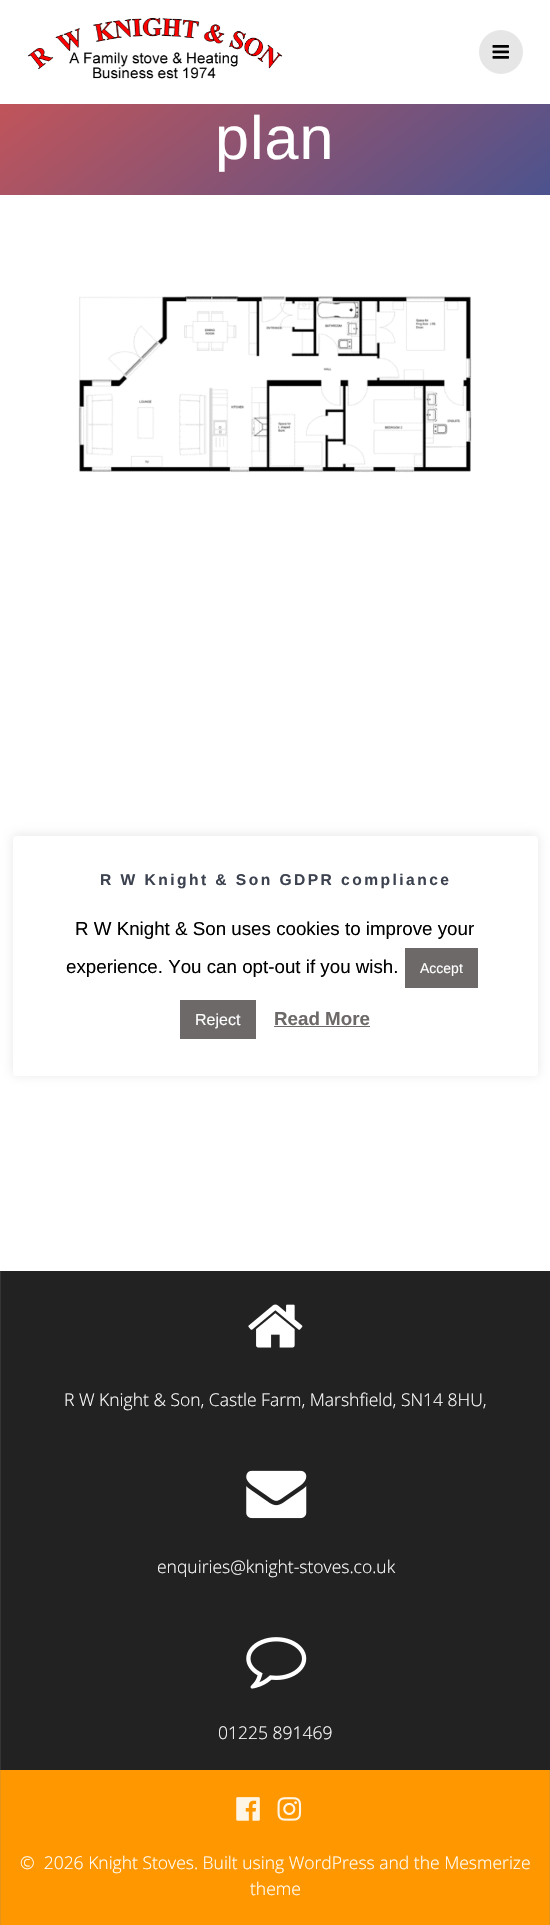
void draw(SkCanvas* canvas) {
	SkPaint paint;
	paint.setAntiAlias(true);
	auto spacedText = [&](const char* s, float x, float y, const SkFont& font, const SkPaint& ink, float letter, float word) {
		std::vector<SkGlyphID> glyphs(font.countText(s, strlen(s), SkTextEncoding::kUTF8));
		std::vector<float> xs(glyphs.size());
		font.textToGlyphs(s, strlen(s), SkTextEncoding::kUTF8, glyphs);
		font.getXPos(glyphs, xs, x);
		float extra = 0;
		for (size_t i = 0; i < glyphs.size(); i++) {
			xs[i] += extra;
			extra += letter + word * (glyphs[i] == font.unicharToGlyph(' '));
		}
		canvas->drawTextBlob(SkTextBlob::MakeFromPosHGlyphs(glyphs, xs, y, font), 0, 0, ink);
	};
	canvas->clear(0xffffffff);
	canvas->drawImageRect(SkImages::DeferredFromEncodedData(SkData::MakeFromFileName("img1.png")), SkRect::MakeXYWH(27, 17, 256, 62), SkSamplingOptions());
	paint.setColor(0xffe6e6e6);
	canvas->drawCircle(501, 52, 22, paint);
	canvas->drawImageRect(SkImages::DeferredFromEncodedData(SkData::MakeFromFileName("img2.png")), SkRect::MakeXYWH(492, 45, 17, 14), SkSamplingOptions());
	{
		const SkColor colors[] = {0xffd85450, 0xff4c538e};
		const float stops[] = {0, 1};
		const SkPoint ends[] = {{123, -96}, {427, 291}};
		paint.setShader(SkGradientShader::MakeLinear(ends, colors, stops, 2, SkTileMode::kClamp));
		paint.setAlpha(255);
	}
	canvas->drawRect(SkRect::MakeXYWH(0, 104, 550, 91), paint);
	SkFont f1(fontMgr->matchFamilyStyle("Liberation Sans", SkFontStyle::Normal()), 61);
	f1.setSubpixel(true);
	paint.setShader(nullptr);
	paint.setColor(0xffffffff);
	spacedText("plan", 215, 159, f1, paint, 1, 0);
	canvas->drawImageRect(SkImages::DeferredFromEncodedData(SkData::MakeFromFileName("img3.png")), SkRect::MakeXYWH(78, 296, 394, 177), SkSamplingOptions());
	paint.setColor(0xff222222);
	canvas->drawRect(SkRect::MakeXYWH(1, 1271, 549, 499), paint);
	paint.setColor(0xff353535);
	canvas->drawRect(SkRect::MakeXYWH(0, 1271, 1, 499), paint);
	canvas->drawImageRect(SkImages::DeferredFromEncodedData(SkData::MakeFromFileName("img4.png")), SkRect::MakeXYWH(248, 1304, 55, 44), SkSamplingOptions());
	SkFont f2(fontMgr->matchFamilyStyle("Open Sans", SkFontStyle(300, SkFontStyle::kNormal_Width, SkFontStyle::kUpright_Slant)), 17.5);
	f2.setSubpixel(true);
	paint.setColor(0xffffffff);
	canvas->drawString("R W Knight & Son, Castle Farm, Marshfield, SN14 8HU,", 64, 1406, f2, paint);
	canvas->drawImageRect(SkImages::DeferredFromEncodedData(SkData::MakeFromFileName("img5.png")), SkRect::MakeXYWH(246, 1470, 61, 49), SkSamplingOptions());
	canvas->drawString("enquiries@knight-stoves.co.uk", 157, 1573, f2, paint);
	canvas->drawImageRect(SkImages::DeferredFromEncodedData(SkData::MakeFromFileName("img6.png")), SkRect::MakeXYWH(246, 1637, 61, 52), SkSamplingOptions());
	canvas->drawString("01225 891469", 218, 1739, f2, paint);
	paint.setColor(0xffff9800);
	canvas->drawRect(SkRect::MakeXYWH(1, 1770, 548, 155), paint);
	paint.setColor(0xffe6931a);
	canvas->drawRect(SkRect::MakeXYWH(549, 1770, 1, 155), paint);
	canvas->drawRect(SkRect::MakeXYWH(0, 1770, 1, 155), paint);
	canvas->drawImageRect(SkImages::DeferredFromEncodedData(SkData::MakeFromFileName("img7.png")), SkRect::MakeXYWH(236, 1797, 24, 24), SkSamplingOptions());
	canvas->drawImageRect(SkImages::DeferredFromEncodedData(SkData::MakeFromFileName("img8.png")), SkRect::MakeXYWH(277, 1797, 25, 24), SkSamplingOptions());
	paint.setColor(0xffffffff);
	canvas->drawString("©  2026 Knight Stoves. Built using WordPress and the Mesmerize", 20, 1869, f2, paint);
	canvas->drawString("theme", 250, 1895, f2, paint);
	paint.setColor(0x4dacabab);
	paint.setMaskFilter(SkMaskFilter::MakeBlur(kNormal_SkBlurStyle, 6));
	canvas->drawRoundRect(SkRect::MakeXYWH(13, 835, 525, 240), 4, 4, paint);
	paint.setMaskFilter(nullptr);
	paint.setColor(0xffffffff);
	canvas->drawRoundRect(SkRect::MakeXYWH(13, 836, 525, 240), 4, 4, paint);
	SkFont f3(fontMgr->matchFamilyStyle("Liberation Sans", SkFontStyle::Bold()), 15.6);
	f3.setSubpixel(true);
	paint.setColor(0xff3c424f);
	spacedText("R W Knight & Son GDPR compliance", 100, 885, f3, paint, 2.45, 0);
	SkFont f4(fontMgr->matchFamilyStyle("Liberation Sans", SkFontStyle::Normal()), 18.75);
	f4.setSubpixel(true);
	paint.setColor(0xff000000);
	canvas->drawString("R W Knight & Son uses cookies to improve your", 75, 935, f4, paint);
	canvas->drawString("experience. You can opt-out if you wish.", 66, 973, f4, paint);
	paint.setColor(0xff6e6969);
	canvas->drawRect(SkRect::MakeXYWH(405, 948, 73, 40), paint);
	SkFont f5(fontMgr->matchFamilyStyle("Liberation Sans", SkFontStyle::Normal()), 14);
	f5.setSubpixel(true);
	paint.setColor(0xffffffff);
	canvas->drawString("Accept", 420, 973, f5, paint);
	paint.setColor(0xff6e6969);
	canvas->drawRect(SkRect::MakeXYWH(180, 1000, 76, 39), paint);
	SkFont f6(fontMgr->matchFamilyStyle("Liberation Sans", SkFontStyle::Normal()), 16);
	f6.setSubpixel(true);
	paint.setColor(0xffffffff);
	canvas->drawString("Reject", 195, 1025, f6, paint);
	SkFont f7(fontMgr->matchFamilyStyle("Liberation Sans", SkFontStyle::Bold()), 18.75);
	f7.setSubpixel(true);
	paint.setColor(0xff6e6969);
	canvas->drawString("Read More", 274, 1025, f7, paint);
	canvas->drawRect(SkRect::MakeXYWH(274, 1026, 96, 1), paint);
}
